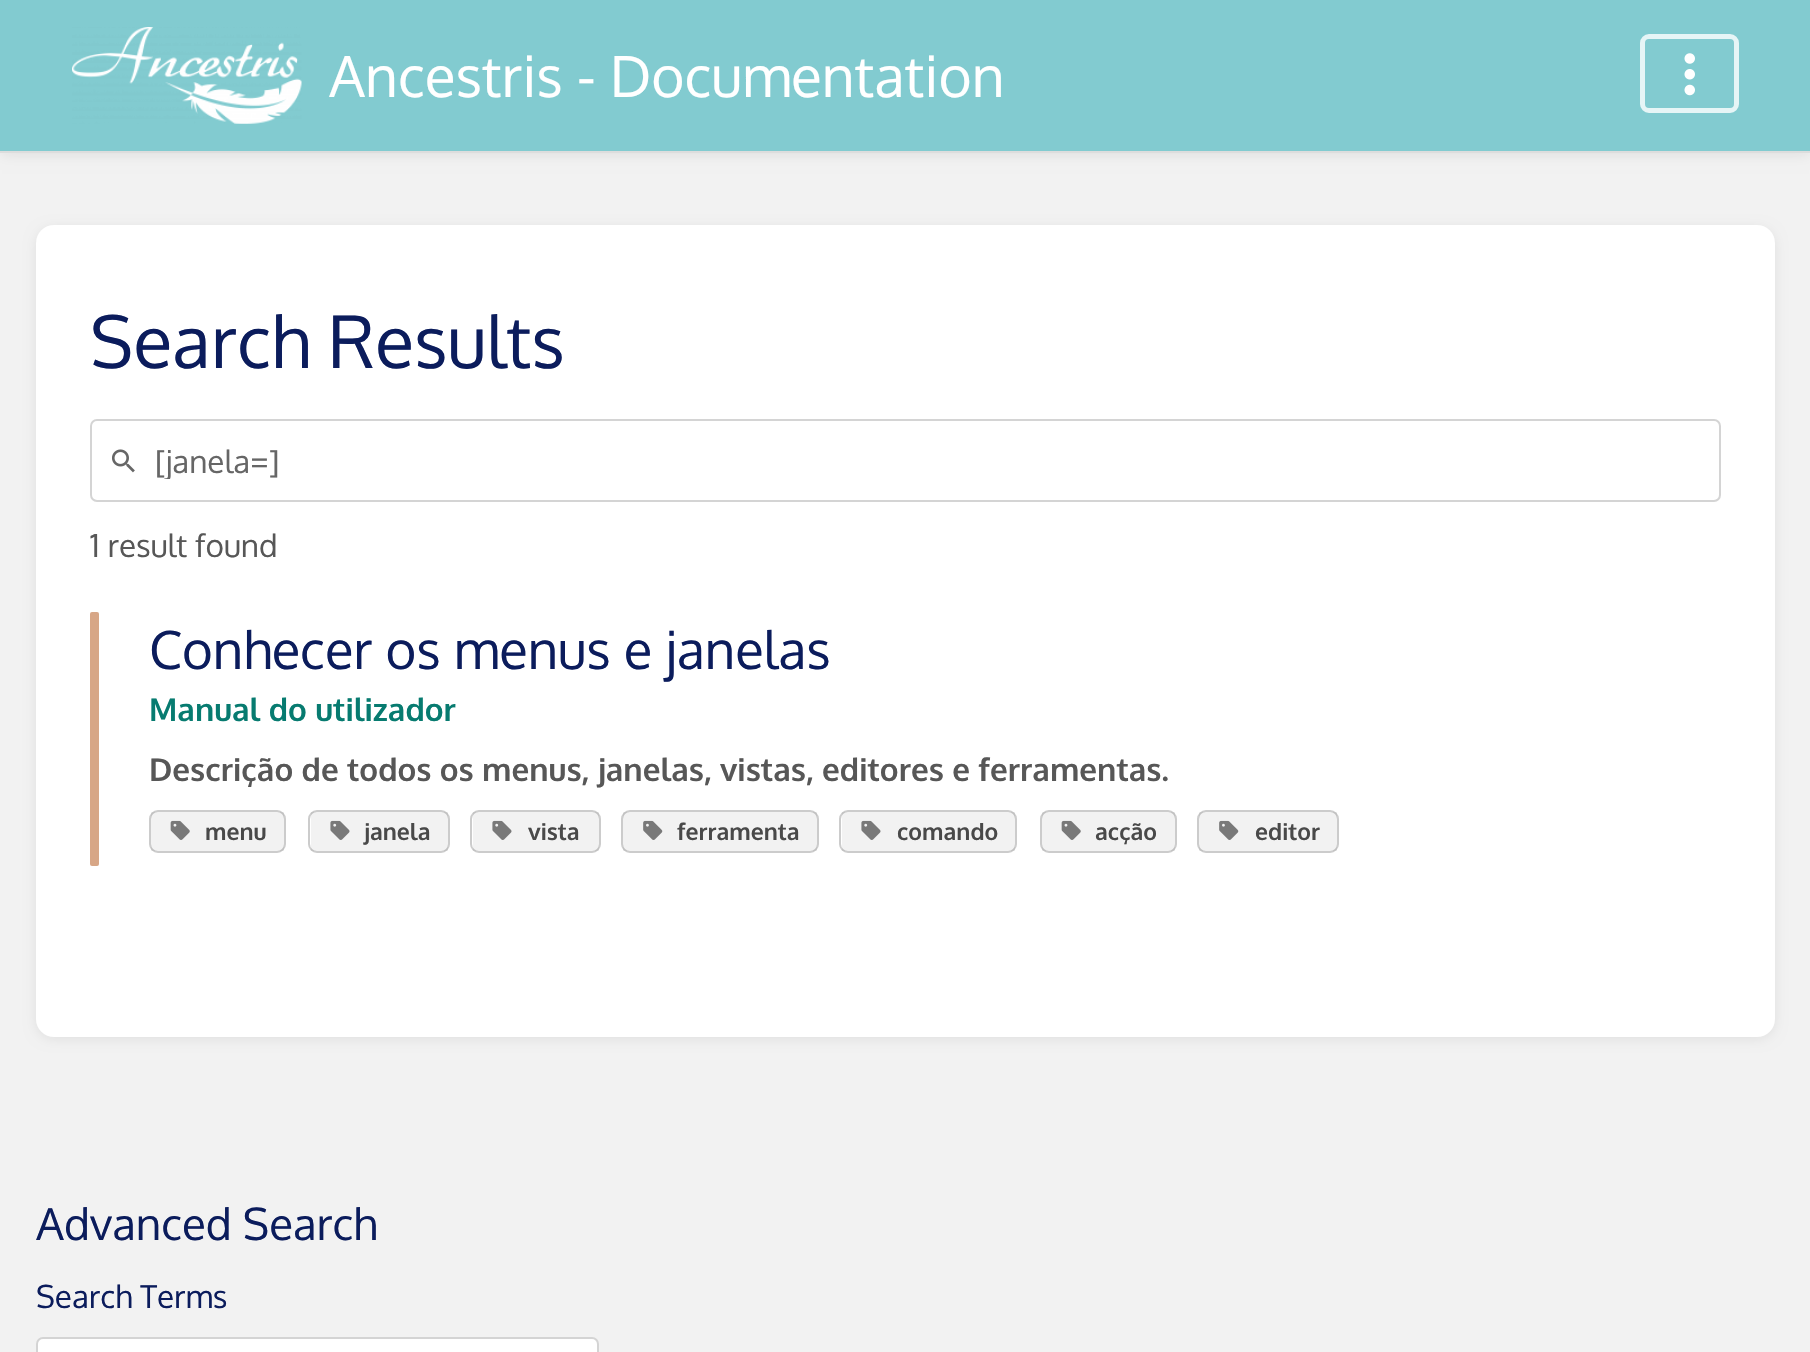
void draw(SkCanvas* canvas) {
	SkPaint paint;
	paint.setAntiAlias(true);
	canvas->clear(0xfff2f2f2);
	paint.setColor(0x1a000000);
	paint.setMaskFilter(SkMaskFilter::MakeBlur(kNormal_SkBlurStyle, 7));
	canvas->drawRect(SkRect::MakeXYWH(2, 5, 1807, 148), paint);
	paint.setMaskFilter(nullptr);
	paint.setColor(0xff82cbd0);
	canvas->drawRect(SkRect::MakeXYWH(0, 0, 1810, 151), paint);
	paint.setColor(0xffdddddd);
	canvas->drawRect(SkRect::MakeXYWH(0, 151, 1810, 2), paint);
	canvas->drawImageRect(SkImages::DeferredFromEncodedData(SkData::MakeFromFileName("img1.png")), SkRect::MakeXYWH(72, 27, 230, 97), SkSamplingOptions());
	SkFont f1(fontMgr->matchFamilyStyle("Oxygen", SkFontStyle::Normal()), 56.75);
	f1.setSubpixel(true);
	paint.setColor(0xffffffff);
	canvas->drawString("Ancestris - Documentation", 329, 97, f1, paint);
	paint.setStroke(true);
	paint.setStrokeWidth(5);
	paint.setColor(0xffe6f5f6);
	canvas->drawRoundRect(SkRect::MakeXYWH(1642.5, 36.5, 94, 74), 6.5, 6.5, paint);
	canvas->drawImageRect(SkImages::DeferredFromEncodedData(SkData::MakeFromFileName("img2.png")), SkRect::MakeXYWH(1684, 53, 11, 43), SkSamplingOptions());
	paint.setStroke(false);
	paint.setColor(0x1a000000);
	paint.setMaskFilter(SkMaskFilter::MakeBlur(kNormal_SkBlurStyle, 7));
	canvas->drawRoundRect(SkRect::MakeXYWH(38, 230, 1735, 807), 16, 16, paint);
	paint.setMaskFilter(nullptr);
	paint.setColor(0xffffffff);
	canvas->drawRoundRect(SkRect::MakeXYWH(36, 225, 1739, 812), 18, 18, paint);
	SkFont f2(fontMgr->matchFamilyStyle("Oxygen", SkFontStyle::Normal()), 72);
	f2.setSubpixel(true);
	paint.setColor(0xff0b1c5c);
	canvas->drawString("Search Results", 90, 368, f2, paint);
	paint.setStroke(true);
	paint.setStrokeWidth(2);
	paint.setColor(0xffd4d4d4);
	canvas->drawRoundRect(SkRect::MakeXYWH(91, 420, 1629, 81), 6, 6, paint);
	canvas->drawImageRect(SkImages::DeferredFromEncodedData(SkData::MakeFromFileName("img3.png")), SkRect::MakeXYWH(112, 449, 23, 24), SkSamplingOptions());
	canvas->save();
	canvas->clipRect(SkRect::MakeXYWH(155, 441, 1544, 38));
	SkFont f3(fontMgr->matchFamilyStyle("Oxygen", SkFontStyle::Normal()), 31.5);
	f3.setSubpixel(true);
	paint.setStroke(false);
	paint.setColor(0xff666666);
	canvas->drawString("[janela=]", 155, 473, f3, paint);
	canvas->restore();
	paint.setColor(0xff575757);
	canvas->drawString("1 result found", 90, 557, f3, paint);
	paint.setColor(0xffd7a686);
	canvas->drawRoundRect(SkRect::MakeXYWH(90, 612, 9, 254), 2, 2, paint);
	SkFont f4(fontMgr->matchFamilyStyle("Oxygen", SkFontStyle::Normal()), 52.5);
	f4.setSubpixel(true);
	paint.setColor(0xff0b1c5c);
	canvas->drawString("Conhecer os menus e janelas", 149, 669, f4, paint);
	SkFont f5(fontMgr->matchFamilyStyle("Oxygen", SkFontStyle::Bold()), 31.5);
	f5.setSubpixel(true);
	paint.setColor(0xff077b70);
	canvas->drawString("Manual do utilizador", 149, 721, f5, paint);
	paint.setColor(0xff575757);
	canvas->drawString("Descrição de todos os menus, janelas, vistas, editores e ferramentas.", 149, 781, f5, paint);
	paint.setStroke(true);
	paint.setColor(0xffcccccc);
	canvas->drawRoundRect(SkRect::MakeXYWH(150, 811, 135, 41), 8, 8, paint);
	paint.setStroke(false);
	paint.setColor(0x0d000000);
	canvas->drawRect(SkRect::MakeXYWH(151, 812, 133, 39), paint);
	canvas->drawImageRect(SkImages::DeferredFromEncodedData(SkData::MakeFromFileName("img4.png")), SkRect::MakeXYWH(170, 820, 20, 20), SkSamplingOptions());
	SkFont f6(fontMgr->matchFamilyStyle("Oxygen", SkFontStyle::Bold()), 23);
	f6.setSubpixel(true);
	paint.setColor(0xff494949);
	canvas->drawString("menu", 205, 840, f6, paint);
	paint.setStroke(true);
	paint.setColor(0xffcccccc);
	canvas->drawRoundRect(SkRect::MakeXYWH(309, 811, 140, 41), 8, 8, paint);
	paint.setStroke(false);
	paint.setColor(0x0d000000);
	canvas->drawRect(SkRect::MakeXYWH(311, 812, 137, 39), paint);
	canvas->drawImageRect(SkImages::DeferredFromEncodedData(SkData::MakeFromFileName("img5.png")), SkRect::MakeXYWH(330, 820, 20, 20), SkSamplingOptions());
	paint.setColor(0xff494949);
	canvas->drawString("janela", 364, 840, f6, paint);
	paint.setStroke(true);
	paint.setColor(0xffcccccc);
	canvas->drawRoundRect(SkRect::MakeXYWH(471, 811, 129, 41), 8, 8, paint);
	paint.setStroke(false);
	paint.setColor(0x0d000000);
	canvas->drawRect(SkRect::MakeXYWH(473, 812, 126, 39), paint);
	canvas->drawImageRect(SkImages::DeferredFromEncodedData(SkData::MakeFromFileName("img5.png")), SkRect::MakeXYWH(492, 820, 20, 20), SkSamplingOptions());
	paint.setColor(0xff494949);
	canvas->drawString("vista", 528, 840, f6, paint);
	paint.setStroke(true);
	paint.setColor(0xffcccccc);
	canvas->drawRoundRect(SkRect::MakeXYWH(622, 811, 196, 41), 8, 8, paint);
	paint.setStroke(false);
	paint.setColor(0x0d000000);
	canvas->drawRect(SkRect::MakeXYWH(623, 812, 194, 39), paint);
	canvas->drawImageRect(SkImages::DeferredFromEncodedData(SkData::MakeFromFileName("img6.png")), SkRect::MakeXYWH(643, 820, 20, 20), SkSamplingOptions());
	paint.setColor(0xff494949);
	canvas->drawString("ferramenta", 677, 840, f6, paint);
	paint.setStroke(true);
	paint.setColor(0xffcccccc);
	canvas->drawRoundRect(SkRect::MakeXYWH(840, 811, 176, 41), 8, 8, paint);
	paint.setStroke(false);
	paint.setColor(0x0d000000);
	canvas->drawRect(SkRect::MakeXYWH(842, 812, 173, 39), paint);
	canvas->drawImageRect(SkImages::DeferredFromEncodedData(SkData::MakeFromFileName("img5.png")), SkRect::MakeXYWH(861, 820, 20, 20), SkSamplingOptions());
	paint.setColor(0xff494949);
	canvas->drawString("comando", 897, 840, f6, paint);
	paint.setStroke(true);
	paint.setColor(0xffcccccc);
	canvas->drawRoundRect(SkRect::MakeXYWH(1041, 811, 135, 41), 8, 8, paint);
	paint.setStroke(false);
	paint.setColor(0x0d000000);
	canvas->drawRect(SkRect::MakeXYWH(1042, 812, 133, 39), paint);
	canvas->drawImageRect(SkImages::DeferredFromEncodedData(SkData::MakeFromFileName("img4.png")), SkRect::MakeXYWH(1061, 820, 20, 20), SkSamplingOptions());
	paint.setColor(0xff494949);
	canvas->drawString("acção", 1095, 840, f6, paint);
	paint.setStroke(true);
	paint.setColor(0xffcccccc);
	canvas->drawRoundRect(SkRect::MakeXYWH(1198, 811, 140, 41), 8, 8, paint);
	paint.setStroke(false);
	paint.setColor(0x0d000000);
	canvas->drawRect(SkRect::MakeXYWH(1199, 812, 138, 39), paint);
	canvas->drawImageRect(SkImages::DeferredFromEncodedData(SkData::MakeFromFileName("img6.png")), SkRect::MakeXYWH(1219, 820, 20, 20), SkSamplingOptions());
	paint.setColor(0xff494949);
	canvas->drawString("editor", 1255, 840, f6, paint);
	SkFont f7(fontMgr->matchFamilyStyle("Oxygen", SkFontStyle::Normal()), 44);
	f7.setSubpixel(true);
	paint.setColor(0xff0b1c5c);
	canvas->drawString("Advanced Search", 36, 1240, f7, paint);
	canvas->drawString("Search Terms", 36, 1308, f3, paint);
	paint.setColor(0xffffffff);
	canvas->drawRoundRect(SkRect::MakeXYWH(37, 1338, 561, 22), 6, 6, paint);
	paint.setStroke(true);
	paint.setColor(0xffd4d4d4);
	canvas->drawRoundRect(SkRect::MakeXYWH(37, 1338, 561, 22), 6, 6, paint);
}
